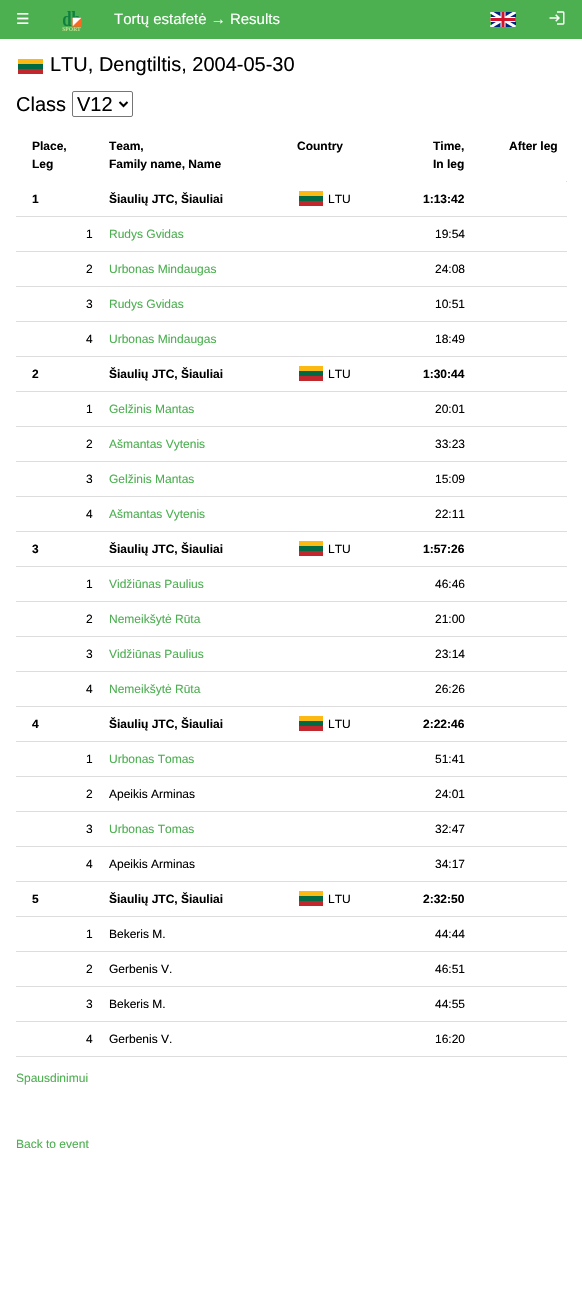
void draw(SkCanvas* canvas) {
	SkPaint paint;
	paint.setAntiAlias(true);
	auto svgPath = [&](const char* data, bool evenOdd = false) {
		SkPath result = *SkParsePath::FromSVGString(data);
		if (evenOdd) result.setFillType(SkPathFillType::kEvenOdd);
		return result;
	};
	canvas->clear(0xffffffff);
	paint.setColor(0xff4caf50);
	canvas->drawRect(SkRect::MakeXYWH(0, 0, 582, 39), paint);
	SkFont f1(fontMgr->matchFamilyStyle("DejaVu Sans", SkFontStyle::Normal()), 15);
	f1.setSubpixel(true);
	paint.setColor(0xffffffff);
	canvas->drawString("☰", 16, 24, f1, paint);
	canvas->drawImageRect(SkImages::DeferredFromEncodedData(SkData::MakeFromFileName("img1.png")), SkRect::MakeXYWH(62, 11, 20, 20), SkSamplingOptions());
	SkFont f2(fontMgr->matchFamilyStyle("Liberation Sans", SkFontStyle::Normal()), 15);
	f2.setSubpixel(true);
	canvas->drawString("Tortų estafetė → Results", 114, 24, f2, paint);
	canvas->drawImageRect(SkImages::DeferredFromEncodedData(SkData::MakeFromFileName("img2.png")), SkRect::MakeXYWH(490, 12, 26, 15), SkSamplingOptions());
	canvas->drawImageRect(SkImages::DeferredFromEncodedData(SkData::MakeFromFileName("img3.png")), SkRect::MakeXYWH(549, 11, 16, 14), SkSamplingOptions());
	paint.setColor(0xfffdb913);
	canvas->drawRect(SkRect::MakeXYWH(18, 59, 25, 5), paint);
	paint.setColor(0xff006a44);
	canvas->drawRect(SkRect::MakeXYWH(18, 64, 25, 5), paint);
	paint.setColor(0xffc1272d);
	canvas->drawRect(SkRect::MakeXYWH(18, 69, 25, 5), paint);
	SkFont f3(fontMgr->matchFamilyStyle("Liberation Sans", SkFontStyle::Normal()), 20);
	f3.setSubpixel(true);
	paint.setColor(0xff000000);
	canvas->drawString("LTU, Dengtiltis, 2004-05-30", 50, 71, f3, paint);
	canvas->drawString("Class", 16, 111, f3, paint);
	paint.setStroke(true);
	paint.setStrokeWidth(1);
	paint.setColor(0xff767676);
	canvas->drawRoundRect(SkRect::MakeXYWH(72.5, 91.5, 60, 25), 1.5, 1.5, paint);
	paint.setStrokeWidth(2);
	paint.setColor(0xff000000);
	canvas->drawPath(svgPath("M119.5 102L123.5 106L127.5 102"), paint);
	paint.setStroke(false);
	canvas->drawString("V12", 77, 111, f3, paint);
	paint.setColor(0xffdddddd);
	canvas->drawRect(SkRect::MakeXYWH(566, 181, 1, 1), paint);
	SkFont f4(fontMgr->matchFamilyStyle("Liberation Sans", SkFontStyle::Bold()), 12);
	f4.setSubpixel(true);
	paint.setColor(0xff000000);
	canvas->drawString("Place,", 32, 150, f4, paint);
	canvas->drawString("Leg", 32, 168, f4, paint);
	canvas->drawString("Team,", 109, 150, f4, paint);
	canvas->drawString("Family name, Name", 109, 168, f4, paint);
	canvas->drawString("Country", 297, 150, f4, paint);
	canvas->drawString("Time,", 433, 150, f4, paint);
	canvas->drawString("In leg", 433, 168, f4, paint);
	canvas->drawString("After leg", 509, 150, f4, paint);
	paint.setColor(0xffdddddd);
	canvas->drawRect(SkRect::MakeXYWH(16, 216, 551, 1), paint);
	paint.setColor(0xff000000);
	canvas->drawString("1", 32, 203, f4, paint);
	canvas->drawString("Šiaulių JTC, Šiauliai", 109, 203, f4, paint);
	paint.setColor(0xfffdb913);
	canvas->drawRect(SkRect::MakeXYWH(299, 191, 24, 5), paint);
	paint.setColor(0xff006a44);
	canvas->drawRect(SkRect::MakeXYWH(299, 196, 24, 5), paint);
	paint.setColor(0xffc1272d);
	canvas->drawRect(SkRect::MakeXYWH(299, 201, 24, 5), paint);
	SkFont f5(fontMgr->matchFamilyStyle("Liberation Sans", SkFontStyle::Normal()), 12);
	f5.setSubpixel(true);
	paint.setColor(0xff000000);
	canvas->drawString("LTU", 328, 203, f5, paint);
	canvas->drawString("1:13:42", 423, 203, f4, paint);
	paint.setColor(0xffdddddd);
	canvas->drawRect(SkRect::MakeXYWH(16, 251, 551, 1), paint);
	paint.setColor(0xff000000);
	canvas->drawString("1", 86, 238, f5, paint);
	paint.setColor(0xff4caf50);
	canvas->drawString("Rudys Gvidas", 109, 238, f5, paint);
	paint.setColor(0xff000000);
	canvas->drawString("19:54", 435, 238, f5, paint);
	paint.setColor(0xffdddddd);
	canvas->drawRect(SkRect::MakeXYWH(16, 286, 551, 1), paint);
	paint.setColor(0xff000000);
	canvas->drawString("2", 86, 273, f5, paint);
	paint.setColor(0xff4caf50);
	canvas->drawString("Urbonas Mindaugas", 109, 273, f5, paint);
	paint.setColor(0xff000000);
	canvas->drawString("24:08", 435, 273, f5, paint);
	paint.setColor(0xffdddddd);
	canvas->drawRect(SkRect::MakeXYWH(16, 321, 551, 1), paint);
	paint.setColor(0xff000000);
	canvas->drawString("3", 86, 308, f5, paint);
	paint.setColor(0xff4caf50);
	canvas->drawString("Rudys Gvidas", 109, 308, f5, paint);
	paint.setColor(0xff000000);
	canvas->drawString("10:51", 435, 308, f5, paint);
	paint.setColor(0xffdddddd);
	canvas->drawRect(SkRect::MakeXYWH(16, 356, 551, 1), paint);
	paint.setColor(0xff000000);
	canvas->drawString("4", 86, 343, f5, paint);
	paint.setColor(0xff4caf50);
	canvas->drawString("Urbonas Mindaugas", 109, 343, f5, paint);
	paint.setColor(0xff000000);
	canvas->drawString("18:49", 435, 343, f5, paint);
	paint.setColor(0xffdddddd);
	canvas->drawRect(SkRect::MakeXYWH(16, 391, 551, 1), paint);
	paint.setColor(0xff000000);
	canvas->drawString("2", 32, 378, f4, paint);
	canvas->drawString("Šiaulių JTC, Šiauliai", 109, 378, f4, paint);
	paint.setColor(0xfffdb913);
	canvas->drawRect(SkRect::MakeXYWH(299, 366, 24, 5), paint);
	paint.setColor(0xff006a44);
	canvas->drawRect(SkRect::MakeXYWH(299, 371, 24, 5), paint);
	paint.setColor(0xffc1272d);
	canvas->drawRect(SkRect::MakeXYWH(299, 376, 24, 5), paint);
	paint.setColor(0xff000000);
	canvas->drawString("LTU", 328, 378, f5, paint);
	canvas->drawString("1:30:44", 423, 378, f4, paint);
	paint.setColor(0xffdddddd);
	canvas->drawRect(SkRect::MakeXYWH(16, 426, 551, 1), paint);
	paint.setColor(0xff000000);
	canvas->drawString("1", 86, 413, f5, paint);
	paint.setColor(0xff4caf50);
	canvas->drawString("Gelžinis Mantas", 109, 413, f5, paint);
	paint.setColor(0xff000000);
	canvas->drawString("20:01", 435, 413, f5, paint);
	paint.setColor(0xffdddddd);
	canvas->drawRect(SkRect::MakeXYWH(16, 461, 551, 1), paint);
	paint.setColor(0xff000000);
	canvas->drawString("2", 86, 448, f5, paint);
	paint.setColor(0xff4caf50);
	canvas->drawString("Ašmantas Vytenis", 109, 448, f5, paint);
	paint.setColor(0xff000000);
	canvas->drawString("33:23", 435, 448, f5, paint);
	paint.setColor(0xffdddddd);
	canvas->drawRect(SkRect::MakeXYWH(16, 496, 551, 1), paint);
	paint.setColor(0xff000000);
	canvas->drawString("3", 86, 483, f5, paint);
	paint.setColor(0xff4caf50);
	canvas->drawString("Gelžinis Mantas", 109, 483, f5, paint);
	paint.setColor(0xff000000);
	canvas->drawString("15:09", 435, 483, f5, paint);
	paint.setColor(0xffdddddd);
	canvas->drawRect(SkRect::MakeXYWH(16, 531, 551, 1), paint);
	paint.setColor(0xff000000);
	canvas->drawString("4", 86, 518, f5, paint);
	paint.setColor(0xff4caf50);
	canvas->drawString("Ašmantas Vytenis", 109, 518, f5, paint);
	paint.setColor(0xff000000);
	canvas->drawString("22:11", 435, 518, f5, paint);
	paint.setColor(0xffdddddd);
	canvas->drawRect(SkRect::MakeXYWH(16, 566, 551, 1), paint);
	paint.setColor(0xff000000);
	canvas->drawString("3", 32, 553, f4, paint);
	canvas->drawString("Šiaulių JTC, Šiauliai", 109, 553, f4, paint);
	paint.setColor(0xfffdb913);
	canvas->drawRect(SkRect::MakeXYWH(299, 541, 24, 5), paint);
	paint.setColor(0xff006a44);
	canvas->drawRect(SkRect::MakeXYWH(299, 546, 24, 5), paint);
	paint.setColor(0xffc1272d);
	canvas->drawRect(SkRect::MakeXYWH(299, 551, 24, 5), paint);
	paint.setColor(0xff000000);
	canvas->drawString("LTU", 328, 553, f5, paint);
	canvas->drawString("1:57:26", 423, 553, f4, paint);
	paint.setColor(0xffdddddd);
	canvas->drawRect(SkRect::MakeXYWH(16, 601, 551, 1), paint);
	paint.setColor(0xff000000);
	canvas->drawString("1", 86, 588, f5, paint);
	paint.setColor(0xff4caf50);
	canvas->drawString("Vidžiūnas Paulius", 109, 588, f5, paint);
	paint.setColor(0xff000000);
	canvas->drawString("46:46", 435, 588, f5, paint);
	paint.setColor(0xffdddddd);
	canvas->drawRect(SkRect::MakeXYWH(16, 636, 551, 1), paint);
	paint.setColor(0xff000000);
	canvas->drawString("2", 86, 623, f5, paint);
	paint.setColor(0xff4caf50);
	canvas->drawString("Nemeikšytė Rūta", 109, 623, f5, paint);
	paint.setColor(0xff000000);
	canvas->drawString("21:00", 435, 623, f5, paint);
	paint.setColor(0xffdddddd);
	canvas->drawRect(SkRect::MakeXYWH(16, 671, 551, 1), paint);
	paint.setColor(0xff000000);
	canvas->drawString("3", 86, 658, f5, paint);
	paint.setColor(0xff4caf50);
	canvas->drawString("Vidžiūnas Paulius", 109, 658, f5, paint);
	paint.setColor(0xff000000);
	canvas->drawString("23:14", 435, 658, f5, paint);
	paint.setColor(0xffdddddd);
	canvas->drawRect(SkRect::MakeXYWH(16, 706, 551, 1), paint);
	paint.setColor(0xff000000);
	canvas->drawString("4", 86, 693, f5, paint);
	paint.setColor(0xff4caf50);
	canvas->drawString("Nemeikšytė Rūta", 109, 693, f5, paint);
	paint.setColor(0xff000000);
	canvas->drawString("26:26", 435, 693, f5, paint);
	paint.setColor(0xffdddddd);
	canvas->drawRect(SkRect::MakeXYWH(16, 741, 551, 1), paint);
	paint.setColor(0xff000000);
	canvas->drawString("4", 32, 728, f4, paint);
	canvas->drawString("Šiaulių JTC, Šiauliai", 109, 728, f4, paint);
	paint.setColor(0xfffdb913);
	canvas->drawRect(SkRect::MakeXYWH(299, 716, 24, 5), paint);
	paint.setColor(0xff006a44);
	canvas->drawRect(SkRect::MakeXYWH(299, 721, 24, 5), paint);
	paint.setColor(0xffc1272d);
	canvas->drawRect(SkRect::MakeXYWH(299, 726, 24, 5), paint);
	paint.setColor(0xff000000);
	canvas->drawString("LTU", 328, 728, f5, paint);
	canvas->drawString("2:22:46", 423, 728, f4, paint);
	paint.setColor(0xffdddddd);
	canvas->drawRect(SkRect::MakeXYWH(16, 776, 551, 1), paint);
	paint.setColor(0xff000000);
	canvas->drawString("1", 86, 763, f5, paint);
	paint.setColor(0xff4caf50);
	canvas->drawString("Urbonas Tomas", 109, 763, f5, paint);
	paint.setColor(0xff000000);
	canvas->drawString("51:41", 435, 763, f5, paint);
	paint.setColor(0xffdddddd);
	canvas->drawRect(SkRect::MakeXYWH(16, 811, 551, 1), paint);
	paint.setColor(0xff000000);
	canvas->drawString("2", 86, 798, f5, paint);
	canvas->drawString("Apeikis Arminas", 109, 798, f5, paint);
	canvas->drawString("24:01", 435, 798, f5, paint);
	paint.setColor(0xffdddddd);
	canvas->drawRect(SkRect::MakeXYWH(16, 846, 551, 1), paint);
	paint.setColor(0xff000000);
	canvas->drawString("3", 86, 833, f5, paint);
	paint.setColor(0xff4caf50);
	canvas->drawString("Urbonas Tomas", 109, 833, f5, paint);
	paint.setColor(0xff000000);
	canvas->drawString("32:47", 435, 833, f5, paint);
	paint.setColor(0xffdddddd);
	canvas->drawRect(SkRect::MakeXYWH(16, 881, 551, 1), paint);
	paint.setColor(0xff000000);
	canvas->drawString("4", 86, 868, f5, paint);
	canvas->drawString("Apeikis Arminas", 109, 868, f5, paint);
	canvas->drawString("34:17", 435, 868, f5, paint);
	paint.setColor(0xffdddddd);
	canvas->drawRect(SkRect::MakeXYWH(16, 916, 551, 1), paint);
	paint.setColor(0xff000000);
	canvas->drawString("5", 32, 903, f4, paint);
	canvas->drawString("Šiaulių JTC, Šiauliai", 109, 903, f4, paint);
	paint.setColor(0xfffdb913);
	canvas->drawRect(SkRect::MakeXYWH(299, 891, 24, 5), paint);
	paint.setColor(0xff006a44);
	canvas->drawRect(SkRect::MakeXYWH(299, 896, 24, 5), paint);
	paint.setColor(0xffc1272d);
	canvas->drawRect(SkRect::MakeXYWH(299, 901, 24, 5), paint);
	paint.setColor(0xff000000);
	canvas->drawString("LTU", 328, 903, f5, paint);
	canvas->drawString("2:32:50", 423, 903, f4, paint);
	paint.setColor(0xffdddddd);
	canvas->drawRect(SkRect::MakeXYWH(16, 951, 551, 1), paint);
	paint.setColor(0xff000000);
	canvas->drawString("1", 86, 938, f5, paint);
	canvas->drawString("Bekeris M.", 109, 938, f5, paint);
	canvas->drawString("44:44", 435, 938, f5, paint);
	paint.setColor(0xffdddddd);
	canvas->drawRect(SkRect::MakeXYWH(16, 986, 551, 1), paint);
	paint.setColor(0xff000000);
	canvas->drawString("2", 86, 973, f5, paint);
	canvas->drawString("Gerbenis V.", 109, 973, f5, paint);
	canvas->drawString("46:51", 435, 973, f5, paint);
	paint.setColor(0xffdddddd);
	canvas->drawRect(SkRect::MakeXYWH(16, 1021, 551, 1), paint);
	paint.setColor(0xff000000);
	canvas->drawString("3", 86, 1008, f5, paint);
	canvas->drawString("Bekeris M.", 109, 1008, f5, paint);
	canvas->drawString("44:55", 435, 1008, f5, paint);
	paint.setColor(0xffdddddd);
	canvas->drawRect(SkRect::MakeXYWH(16, 1056, 551, 1), paint);
	paint.setColor(0xff000000);
	canvas->drawString("4", 86, 1043, f5, paint);
	canvas->drawString("Gerbenis V.", 109, 1043, f5, paint);
	canvas->drawString("16:20", 435, 1043, f5, paint);
	paint.setColor(0xff4caf50);
	canvas->drawString("Spausdinimui", 16, 1082, f5, paint);
	canvas->drawString("Back to event", 16, 1148, f5, paint);
}
